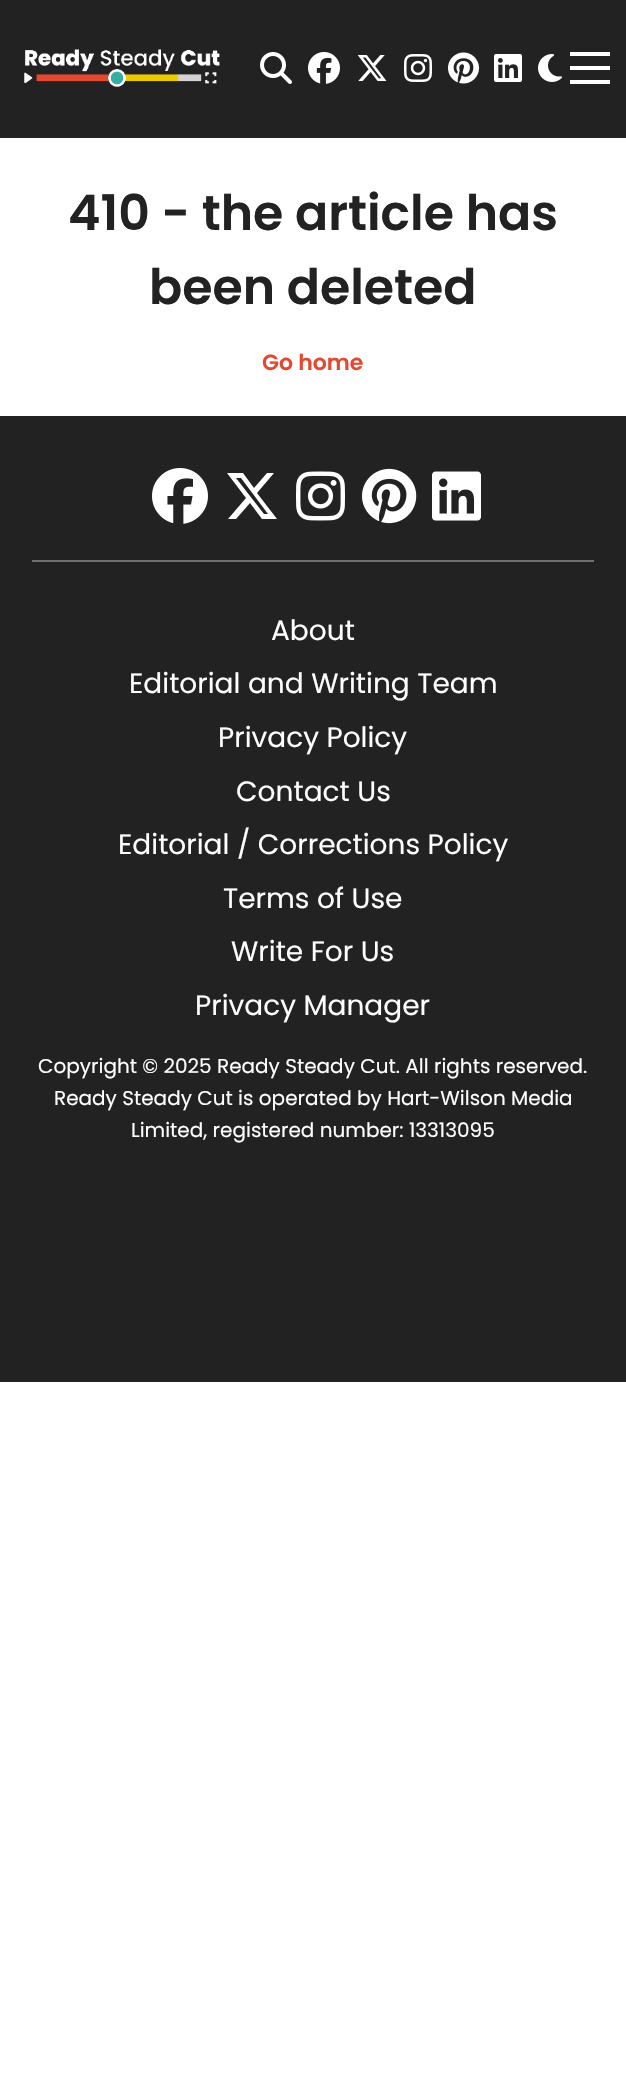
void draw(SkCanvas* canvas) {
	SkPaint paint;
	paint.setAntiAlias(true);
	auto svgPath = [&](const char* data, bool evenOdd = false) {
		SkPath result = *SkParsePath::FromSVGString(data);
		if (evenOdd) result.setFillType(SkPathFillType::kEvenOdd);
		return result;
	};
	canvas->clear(0xffffffff);
	paint.setColor(0xff222222);
	canvas->drawRect(SkRect::MakeXYWH(0, 0, 626, 138), paint);
	canvas->drawImageRect(SkImages::DeferredFromEncodedData(SkData::MakeFromFileName("img1.png")), SkRect::MakeXYWH(24, 49, 196, 38), SkSamplingOptions());
	canvas->drawImageRect(SkImages::DeferredFromEncodedData(SkData::MakeFromFileName("img2.png")), SkRect::MakeXYWH(260, 52, 32, 32), SkSamplingOptions());
	canvas->drawImageRect(SkImages::DeferredFromEncodedData(SkData::MakeFromFileName("img3.png")), SkRect::MakeXYWH(308, 52, 32, 32), SkSamplingOptions());
	canvas->drawImageRect(SkImages::DeferredFromEncodedData(SkData::MakeFromFileName("img4.png")), SkRect::MakeXYWH(357, 55, 30, 26), SkSamplingOptions());
	canvas->drawImageRect(SkImages::DeferredFromEncodedData(SkData::MakeFromFileName("img5.png")), SkRect::MakeXYWH(404, 54, 28, 28), SkSamplingOptions());
	canvas->drawImageRect(SkImages::DeferredFromEncodedData(SkData::MakeFromFileName("img6.png")), SkRect::MakeXYWH(448, 52, 31, 32), SkSamplingOptions());
	canvas->drawImageRect(SkImages::DeferredFromEncodedData(SkData::MakeFromFileName("img7.png")), SkRect::MakeXYWH(494, 54, 28, 28), SkSamplingOptions());
	canvas->drawImageRect(SkImages::DeferredFromEncodedData(SkData::MakeFromFileName("img8.png")), SkRect::MakeXYWH(538, 54, 24, 28), SkSamplingOptions());
	paint.setColor(0xffffffff);
	canvas->drawRect(SkRect::MakeXYWH(570, 52, 40, 4), paint);
	canvas->drawRect(SkRect::MakeXYWH(570, 66, 40, 4), paint);
	canvas->drawRect(SkRect::MakeXYWH(570, 80, 40, 4), paint);
	SkFont f1(fontMgr->matchFamilyStyle("Poppins", SkFontStyle(600, SkFontStyle::kNormal_Width, SkFontStyle::kUpright_Slant)), 49);
	f1.setSubpixel(true);
	paint.setColor(0xff222222);
	canvas->drawString("410 - the article has", 68, 230, f1, paint);
	canvas->drawString("been deleted", 149, 304, f1, paint);
	SkFont f2(fontMgr->matchFamilyStyle("Poppins", SkFontStyle(600, SkFontStyle::kNormal_Width, SkFontStyle::kUpright_Slant)), 22);
	f2.setSubpixel(true);
	paint.setColor(0xffe14931);
	canvas->drawString("Go home", 262, 370, f2, paint);
	paint.setColor(0xff222222);
	canvas->drawRect(SkRect::MakeXYWH(0, 416, 626, 966), paint);
	paint.setColor(0xff707070);
	canvas->drawRect(SkRect::MakeXYWH(32, 560, 562, 2), paint);
	canvas->drawImageRect(SkImages::DeferredFromEncodedData(SkData::MakeFromFileName("img9.png")), SkRect::MakeXYWH(152, 468, 56, 56), SkSamplingOptions());
	paint.setColor(0xffffffff);
	canvas->drawPath(svgPath("M267 473H274L257 493L277 519H262L250 503L236 519H228L246 498L227 473H243L254 488ZM264 514H268L241 478H236Z"), paint);
	canvas->drawImageRect(SkImages::DeferredFromEncodedData(SkData::MakeFromFileName("img10.png")), SkRect::MakeXYWH(296, 471, 49, 50), SkSamplingOptions());
	canvas->drawImageRect(SkImages::DeferredFromEncodedData(SkData::MakeFromFileName("img11.png")), SkRect::MakeXYWH(362, 468, 55, 56), SkSamplingOptions());
	canvas->drawImageRect(SkImages::DeferredFromEncodedData(SkData::MakeFromFileName("img12.png")), SkRect::MakeXYWH(432, 471, 49, 50), SkSamplingOptions());
	SkFont f3(fontMgr->matchFamilyStyle("Poppins", SkFontStyle::Normal()), 28);
	f3.setSubpixel(true);
	canvas->drawString("About", 271, 640, f3, paint);
	canvas->drawString("Editorial and Writing Team", 129, 693, f3, paint);
	canvas->drawString("Privacy Policy", 218, 747, f3, paint);
	canvas->drawString("Contact Us", 236, 801, f3, paint);
	canvas->drawString("Editorial / Corrections Policy", 118, 854, f3, paint);
	canvas->drawString("Terms of Use", 223, 908, f3, paint);
	canvas->drawString("Write For Us", 231, 961, f3, paint);
	canvas->drawString("Privacy Manager", 195, 1015, f3, paint);
	SkFont f4(fontMgr->matchFamilyStyle("Poppins", SkFontStyle::Normal()), 20);
	f4.setSubpixel(true);
	canvas->drawString("Copyright © 2025 Ready Steady Cut. All rights reserved.", 38, 1073, f4, paint);
	canvas->drawString("Ready Steady Cut is operated by Hart-Wilson Media", 54, 1105, f4, paint);
	canvas->drawString("Limited, registered number: 13313095", 131, 1137, f4, paint);
}
